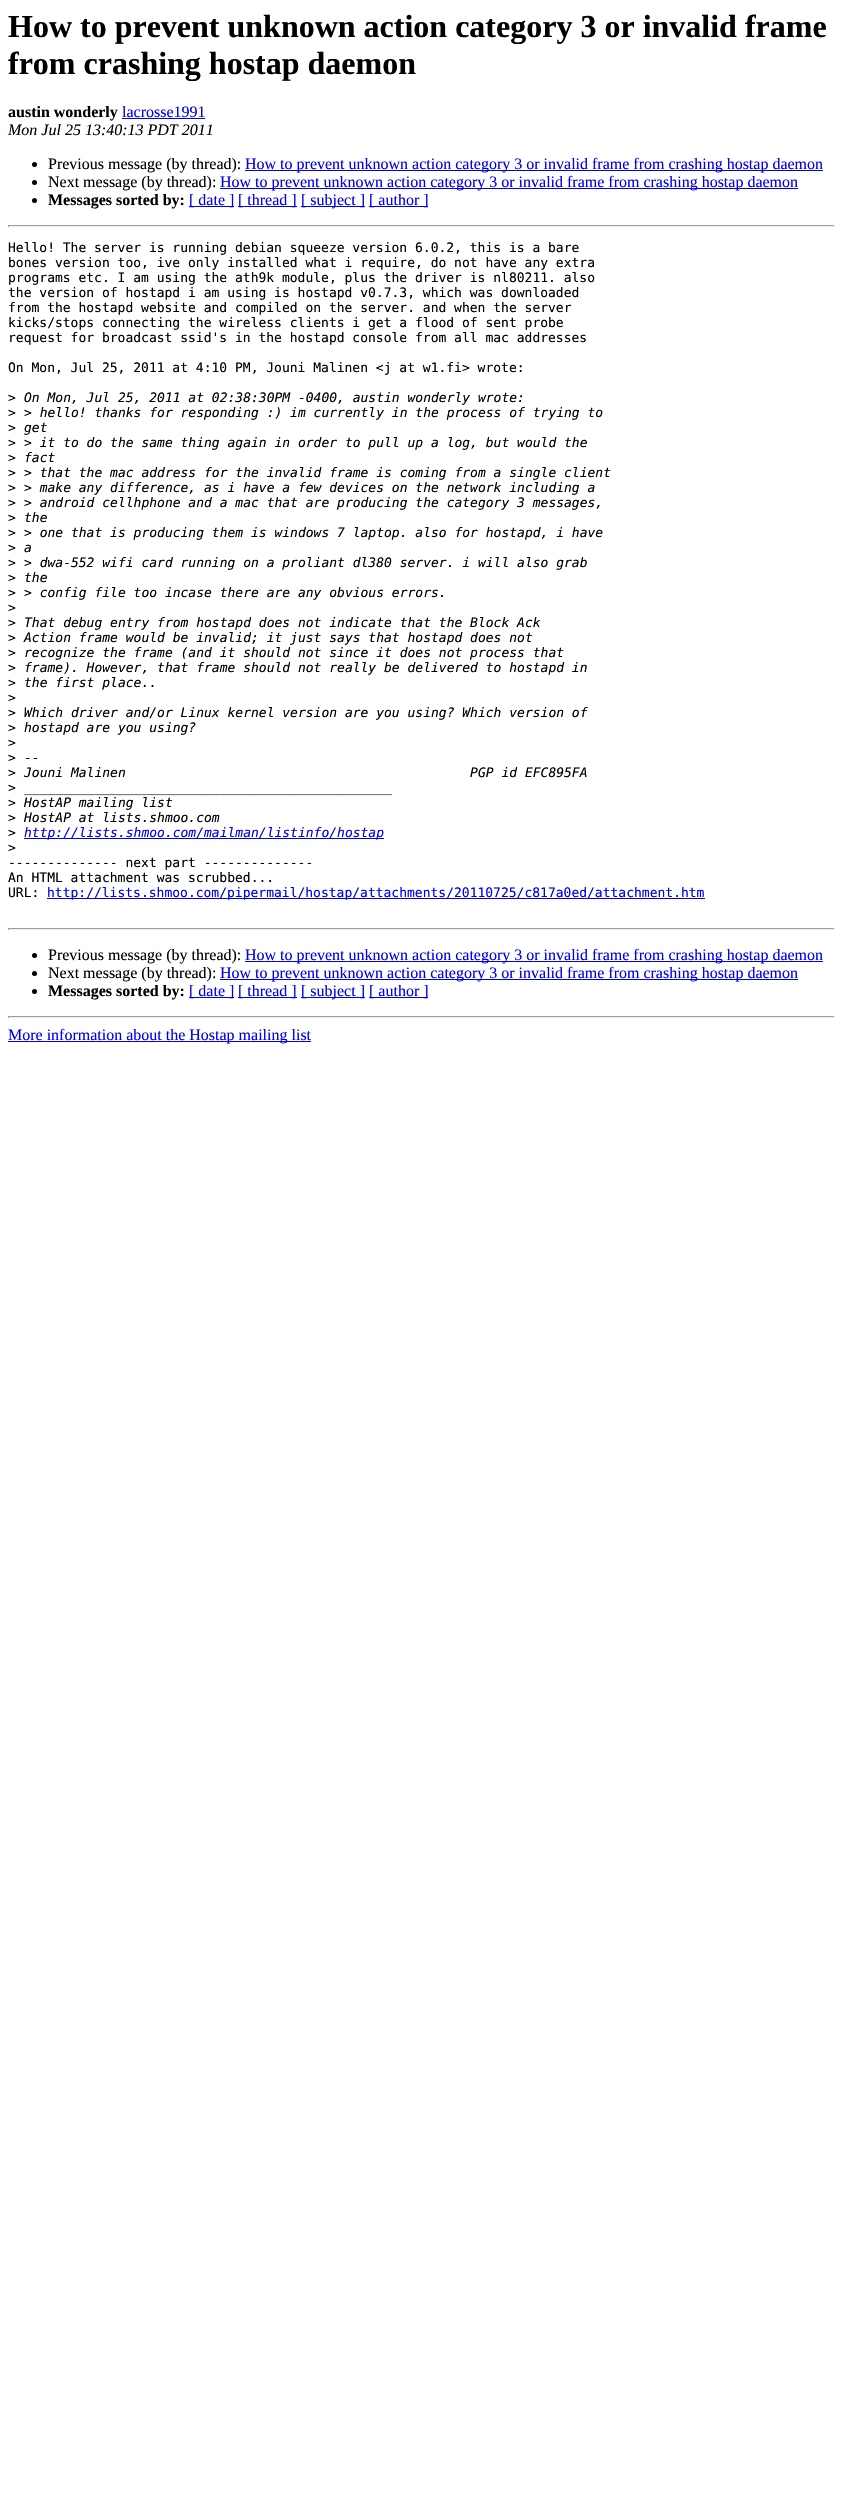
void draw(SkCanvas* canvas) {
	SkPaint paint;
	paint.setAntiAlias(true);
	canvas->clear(0xffffffff);
	SkFont f1(fontMgr->matchFamilyStyle("Liberation Serif", SkFontStyle::Bold()), 32);
	f1.setSubpixel(true);
	paint.setColor(0xff000000);
	canvas->drawString("How to prevent unknown action category 3 or invalid frame", 8, 37, f1, paint);
	canvas->drawString("from crashing hostap daemon", 8, 74, f1, paint);
	SkFont f2(fontMgr->matchFamilyStyle("Liberation Serif", SkFontStyle::Bold()), 16);
	f2.setSubpixel(true);
	canvas->drawString("austin wonderly", 8, 117, f2, paint);
	SkFont f3(fontMgr->matchFamilyStyle("Liberation Serif", SkFontStyle::Normal()), 16);
	f3.setSubpixel(true);
	paint.setColor(0xff0000ee);
	canvas->drawString("lacrosse1991", 122, 117, f3, paint);
	canvas->drawRect(SkRect::MakeXYWH(122, 118, 83, 1), paint);
	SkFont f4(fontMgr->matchFamilyStyle("Liberation Serif", SkFontStyle::Italic()), 16);
	f4.setSubpixel(true);
	paint.setColor(0xff000000);
	canvas->drawString("Mon Jul 25 13:40:13 PDT 2011", 8, 135, f4, paint);
	canvas->drawCircle(34.5, 164.5, 2.5, paint);
	canvas->drawString("Previous message (by thread):", 48, 169, f3, paint);
	paint.setColor(0xff0000ee);
	canvas->drawRect(SkRect::MakeXYWH(245, 170, 578, 1), paint);
	canvas->drawString("How to prevent unknown action category 3 or invalid frame from crashing hostap daemon", 245, 169, f3, paint);
	paint.setColor(0xff000000);
	canvas->drawCircle(34.5, 182.5, 2.5, paint);
	canvas->drawString("Next message (by thread):", 48, 187, f3, paint);
	paint.setColor(0xff0000ee);
	canvas->drawRect(SkRect::MakeXYWH(220, 188, 578, 1), paint);
	canvas->drawString("How to prevent unknown action category 3 or invalid frame from crashing hostap daemon", 220, 187, f3, paint);
	paint.setColor(0xff000000);
	canvas->drawCircle(34.5, 200.5, 2.5, paint);
	canvas->drawString("Messages sorted by:", 48, 205, f2, paint);
	paint.setColor(0xff0000ee);
	canvas->drawRect(SkRect::MakeXYWH(189, 206, 45, 1), paint);
	canvas->drawString("[ date ]", 189, 205, f3, paint);
	canvas->drawRect(SkRect::MakeXYWH(238, 206, 59, 1), paint);
	canvas->drawString("[ thread ]", 238, 205, f3, paint);
	canvas->drawRect(SkRect::MakeXYWH(301, 206, 64, 1), paint);
	canvas->drawString("[ subject ]", 301, 205, f3, paint);
	canvas->drawRect(SkRect::MakeXYWH(369, 206, 59, 1), paint);
	canvas->drawString("[ author ]", 369, 205, f3, paint);
	paint.setColor(0xff9f9f9f);
	canvas->drawRect(SkRect::MakeXYWH(8, 225, 827, 1), paint);
	paint.setColor(0xffeeeeee);
	canvas->drawRect(SkRect::MakeXYWH(834, 225, 1, 2), paint);
	canvas->drawRect(SkRect::MakeXYWH(8, 226, 827, 1), paint);
	paint.setColor(0xff9f9f9f);
	canvas->drawRect(SkRect::MakeXYWH(8, 225, 1, 2), paint);
	SkFont f5(fontMgr->matchFamilyStyle("DejaVu Sans Mono", SkFontStyle::Normal()), 13);
	f5.setSubpixel(true);
	paint.setColor(0xff000000);
	canvas->drawString("Hello! The server is running debian squeeze version 6.0.2, this is a bare", 8, 252, f5, paint);
	canvas->drawString("bones version too, ive only installed what i require, do not have any extra", 8, 267, f5, paint);
	canvas->drawString("programs etc. I am using the ath9k module, plus the driver is nl80211. also", 8, 282, f5, paint);
	canvas->drawString("the version of hostapd i am using is hostapd v0.7.3, which was downloaded", 8, 297, f5, paint);
	canvas->drawString("from the hostapd website and compiled on the server. and when the server", 8, 312, f5, paint);
	canvas->drawString("kicks/stops connecting the wireless clients i get a flood of sent probe", 8, 327, f5, paint);
	canvas->drawString("request for broadcast ssid's in the hostapd console from all mac addresses", 8, 342, f5, paint);
	canvas->drawString("On Mon, Jul 25, 2011 at 4:10 PM, Jouni Malinen <j at w1.fi> wrote:", 8, 372, f5, paint);
	canvas->drawString(">", 8, 402, f5, paint);
	SkFont f6(fontMgr->matchFamilyStyle("DejaVu Sans Mono", SkFontStyle::Italic()), 13);
	f6.setSubpixel(true);
	canvas->drawString("On Mon, Jul 25, 2011 at 02:38:30PM -0400, austin wonderly wrote:", 24, 402, f6, paint);
	canvas->drawString(">", 8, 417, f5, paint);
	canvas->drawString("> hello! thanks for responding :) im currently in the process of trying to", 24, 417, f6, paint);
	canvas->drawString(">", 8, 432, f5, paint);
	canvas->drawString("get", 24, 432, f6, paint);
	canvas->drawString(">", 8, 447, f5, paint);
	canvas->drawString("> it to do the same thing again in order to pull up a log, but would the", 24, 447, f6, paint);
	canvas->drawString(">", 8, 462, f5, paint);
	canvas->drawString("fact", 24, 462, f6, paint);
	canvas->drawString(">", 8, 477, f5, paint);
	canvas->drawString("> that the mac address for the invalid frame is coming from a single client", 24, 477, f6, paint);
	canvas->drawString(">", 8, 492, f5, paint);
	canvas->drawString("> make any difference, as i have a few devices on the network including a", 24, 492, f6, paint);
	canvas->drawString(">", 8, 507, f5, paint);
	canvas->drawString("> android cellhphone and a mac that are producing the category 3 messages,", 24, 507, f6, paint);
	canvas->drawString(">", 8, 522, f5, paint);
	canvas->drawString("the", 24, 522, f6, paint);
	canvas->drawString(">", 8, 537, f5, paint);
	canvas->drawString("> one that is producing them is windows 7 laptop. also for hostapd, i have", 24, 537, f6, paint);
	canvas->drawString(">", 8, 552, f5, paint);
	canvas->drawString("a", 24, 552, f6, paint);
	canvas->drawString(">", 8, 567, f5, paint);
	canvas->drawString("> dwa-552 wifi card running on a proliant dl380 server. i will also grab", 24, 567, f6, paint);
	canvas->drawString(">", 8, 582, f5, paint);
	canvas->drawString("the", 24, 582, f6, paint);
	canvas->drawString(">", 8, 597, f5, paint);
	canvas->drawString("> config file too incase there are any obvious errors.", 24, 597, f6, paint);
	canvas->drawString(">", 8, 612, f5, paint);
	canvas->drawString(">", 8, 627, f5, paint);
	canvas->drawString("That debug entry from hostapd does not indicate that the Block Ack", 24, 627, f6, paint);
	canvas->drawString(">", 8, 642, f5, paint);
	canvas->drawString("Action frame would be invalid; it just says that hostapd does not", 24, 642, f6, paint);
	canvas->drawString(">", 8, 657, f5, paint);
	canvas->drawString("recognize the frame (and it should not since it does not process that", 24, 657, f6, paint);
	canvas->drawString(">", 8, 672, f5, paint);
	canvas->drawString("frame). However, that frame should not really be delivered to hostapd in", 24, 672, f6, paint);
	canvas->drawString(">", 8, 687, f5, paint);
	canvas->drawString("the first place..", 24, 687, f6, paint);
	canvas->drawString(">", 8, 702, f5, paint);
	canvas->drawString(">", 8, 717, f5, paint);
	canvas->drawString("Which driver and/or Linux kernel version are you using? Which version of", 24, 717, f6, paint);
	canvas->drawString(">", 8, 732, f5, paint);
	canvas->drawString("hostapd are you using?", 24, 732, f6, paint);
	canvas->drawString(">", 8, 747, f5, paint);
	canvas->drawString(">", 8, 762, f5, paint);
	canvas->drawString("--", 24, 762, f6, paint);
	canvas->drawString(">", 8, 777, f5, paint);
	canvas->drawString("Jouni Malinen                                            PGP id EFC895FA", 24, 777, f6, paint);
	canvas->drawString(">", 8, 792, f5, paint);
	canvas->drawString("_______________________________________________", 24, 792, f6, paint);
	canvas->drawString(">", 8, 807, f5, paint);
	canvas->drawString("HostAP mailing list", 24, 807, f6, paint);
	canvas->drawString(">", 8, 822, f5, paint);
	canvas->drawString("HostAP at lists.shmoo.com", 24, 822, f6, paint);
	canvas->drawString(">", 8, 837, f5, paint);
	paint.setColor(0xff0000ee);
	canvas->drawRect(SkRect::MakeXYWH(24, 838, 360, 1), paint);
	canvas->drawString("http://lists.shmoo.com/mailman/listinfo/hostap", 24, 837, f6, paint);
	paint.setColor(0xff000000);
	canvas->drawString(">", 8, 852, f5, paint);
	canvas->drawString("-------------- next part --------------", 8, 867, f5, paint);
	canvas->drawString("An HTML attachment was scrubbed...", 8, 882, f5, paint);
	canvas->drawString("URL:", 8, 897, f5, paint);
	paint.setColor(0xff0000ee);
	canvas->drawRect(SkRect::MakeXYWH(47, 898, 658, 1), paint);
	canvas->drawString("http://lists.shmoo.com/pipermail/hostap/attachments/20110725/c817a0ed/attachment.htm", 47, 897, f5, paint);
	paint.setColor(0xff9f9f9f);
	canvas->drawRect(SkRect::MakeXYWH(8, 928, 827, 1), paint);
	paint.setColor(0xffeeeeee);
	canvas->drawRect(SkRect::MakeXYWH(834, 928, 1, 2), paint);
	canvas->drawRect(SkRect::MakeXYWH(8, 929, 827, 1), paint);
	paint.setColor(0xff9f9f9f);
	canvas->drawRect(SkRect::MakeXYWH(8, 928, 1, 2), paint);
	paint.setColor(0xff000000);
	canvas->drawCircle(34.5, 955.5, 2.5, paint);
	canvas->drawString("Previous message (by thread):", 48, 960, f3, paint);
	paint.setColor(0xff0000ee);
	canvas->drawRect(SkRect::MakeXYWH(245, 961, 578, 1), paint);
	canvas->drawString("How to prevent unknown action category 3 or invalid frame from crashing hostap daemon", 245, 960, f3, paint);
	paint.setColor(0xff000000);
	canvas->drawCircle(34.5, 973.5, 2.5, paint);
	canvas->drawString("Next message (by thread):", 48, 978, f3, paint);
	paint.setColor(0xff0000ee);
	canvas->drawRect(SkRect::MakeXYWH(220, 979, 578, 1), paint);
	canvas->drawString("How to prevent unknown action category 3 or invalid frame from crashing hostap daemon", 220, 978, f3, paint);
	paint.setColor(0xff000000);
	canvas->drawCircle(34.5, 991.5, 2.5, paint);
	canvas->drawString("Messages sorted by:", 48, 996, f2, paint);
	paint.setColor(0xff0000ee);
	canvas->drawRect(SkRect::MakeXYWH(189, 997, 45, 1), paint);
	canvas->drawString("[ date ]", 189, 996, f3, paint);
	canvas->drawRect(SkRect::MakeXYWH(238, 997, 59, 1), paint);
	canvas->drawString("[ thread ]", 238, 996, f3, paint);
	canvas->drawRect(SkRect::MakeXYWH(301, 997, 64, 1), paint);
	canvas->drawString("[ subject ]", 301, 996, f3, paint);
	canvas->drawRect(SkRect::MakeXYWH(369, 997, 59, 1), paint);
	canvas->drawString("[ author ]", 369, 996, f3, paint);
	paint.setColor(0xff9f9f9f);
	canvas->drawRect(SkRect::MakeXYWH(8, 1016, 827, 1), paint);
	paint.setColor(0xffeeeeee);
	canvas->drawRect(SkRect::MakeXYWH(834, 1016, 1, 2), paint);
	canvas->drawRect(SkRect::MakeXYWH(8, 1017, 827, 1), paint);
	paint.setColor(0xff9f9f9f);
	canvas->drawRect(SkRect::MakeXYWH(8, 1016, 1, 2), paint);
	paint.setColor(0xff0000ee);
	canvas->drawRect(SkRect::MakeXYWH(8, 1041, 303, 1), paint);
	canvas->drawString("More information about the Hostap mailing list", 8, 1040, f3, paint);
}
